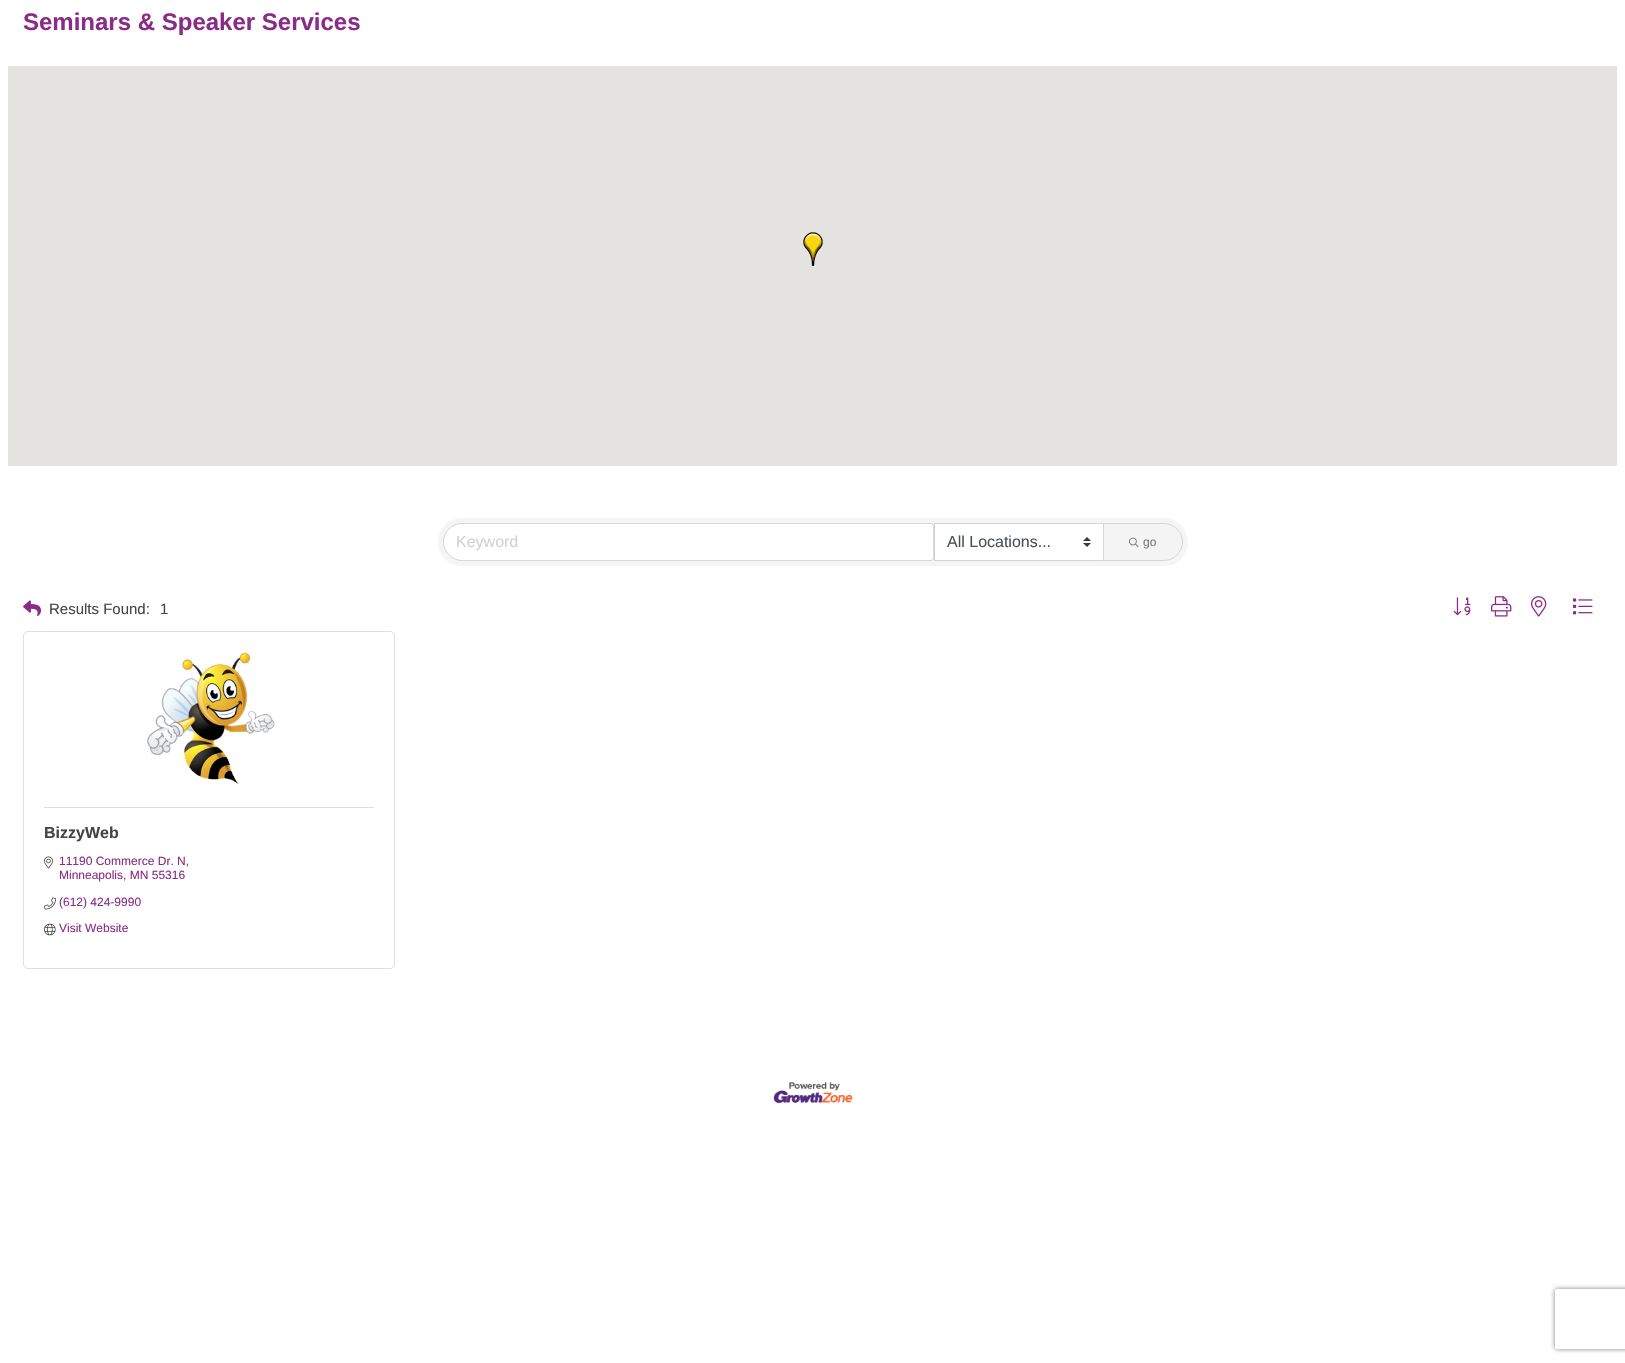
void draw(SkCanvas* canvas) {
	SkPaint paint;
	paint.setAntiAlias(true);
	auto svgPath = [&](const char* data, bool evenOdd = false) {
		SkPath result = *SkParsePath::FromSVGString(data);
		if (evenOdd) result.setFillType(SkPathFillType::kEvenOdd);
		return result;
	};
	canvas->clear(0xffffffff);
	SkFont f1(fontMgr->matchFamilyStyle("Liberation Sans", SkFontStyle::Bold()), 24);
	f1.setSubpixel(true);
	paint.setColor(0xff8a2b88);
	canvas->drawString("Seminars & Speaker Services", 23, 30, f1, paint);
	paint.setColor(0xffe5e3df);
	canvas->drawRect(SkRect::MakeXYWH(8, 66, 1609, 400), paint);
	canvas->drawImageRect(SkImages::DeferredFromEncodedData(SkData::MakeFromFileName("img1.png")), SkRect::MakeXYWH(803, 232, 20, 34), SkSamplingOptions());
	paint.setColor(0xfff5f5f5);
	canvas->drawRoundRect(SkRect::MakeXYWH(438, 518, 750, 48), 24, 24, paint);
	paint.setColor(0xffffffff);
	canvas->drawPath(svgPath("M462 524H931C932 524 933 525 933 526V558C933 559 932 560 931 560H462C452 560 444 552 444 542C444 532 452 524 462 524Z"), paint);
	paint.setStroke(true);
	paint.setStrokeWidth(1);
	paint.setColor(0x1f000000);
	canvas->drawPath(svgPath("M462 523.5H931C932.5 523.5 933.5 524.5 933.5 526V558C933.5 559.5 932.5 560.5 931 560.5H462C452 560.5 443.5 552 443.5 542C443.5 532 452 523.5 462 523.5Z"), paint);
	SkFont f2(fontMgr->matchFamilyStyle("Liberation Sans", SkFontStyle::Normal()), 16);
	f2.setSubpixel(true);
	paint.setStroke(false);
	paint.setColor(0xffd2d2d2);
	canvas->drawString("Keyword", 456, 547, f2, paint);
	paint.setColor(0xffffffff);
	canvas->drawRect(SkRect::MakeXYWH(935, 524, 168, 36), paint);
	canvas->drawImageRect(SkImages::DeferredFromEncodedData(SkData::MakeFromFileName("img2.png")), SkRect::MakeXYWH(1083, 537, 8, 10), SkSamplingOptions());
	paint.setStroke(true);
	paint.setColor(0xffced4da);
	canvas->drawRect(SkRect::MakeXYWH(934.5, 523.5, 169, 37), paint);
	paint.setStroke(false);
	paint.setColor(0xff495057);
	canvas->drawString("All Locations...", 947, 547, f2, paint);
	paint.setColor(0xfff4f4f4);
	canvas->drawPath(svgPath("M1103.5 523.5H1164C1174 523.5 1182.5 532 1182.5 542C1182.5 552 1174 560.5 1164 560.5H1103.5Z"), paint);
	paint.setStroke(true);
	paint.setColor(0xffd6d6d6);
	canvas->drawPath(svgPath("M1103.5 523.5H1164C1174 523.5 1182.5 532 1182.5 542C1182.5 552 1174 560.5 1164 560.5H1103.5Z"), paint);
	canvas->drawImageRect(SkImages::DeferredFromEncodedData(SkData::MakeFromFileName("img3.png")), SkRect::MakeXYWH(1129, 537, 10, 11), SkSamplingOptions());
	SkFont f3(fontMgr->matchFamilyStyle("Liberation Sans", SkFontStyle::Normal()), 12);
	f3.setSubpixel(true);
	paint.setStroke(false);
	paint.setColor(0xff777777);
	canvas->drawString("go", 1143, 546, f3, paint);
	canvas->drawImageRect(SkImages::DeferredFromEncodedData(SkData::MakeFromFileName("img4.png")), SkRect::MakeXYWH(23, 600, 18, 17), SkSamplingOptions());
	SkFont f4(fontMgr->matchFamilyStyle("Liberation Sans", SkFontStyle::Normal()), 15);
	f4.setSubpixel(true);
	paint.setColor(0xff444444);
	canvas->drawString("Results Found:", 49, 614, f4, paint);
	canvas->drawString("1", 160, 614, f4, paint);
	canvas->drawImageRect(SkImages::DeferredFromEncodedData(SkData::MakeFromFileName("img5.png")), SkRect::MakeXYWH(1453, 597, 18, 19), SkSamplingOptions());
	canvas->drawImageRect(SkImages::DeferredFromEncodedData(SkData::MakeFromFileName("img6.png")), SkRect::MakeXYWH(1491, 596, 21, 21), SkSamplingOptions());
	canvas->drawImageRect(SkImages::DeferredFromEncodedData(SkData::MakeFromFileName("img7.png")), SkRect::MakeXYWH(1531, 596, 16, 21), SkSamplingOptions());
	canvas->drawImageRect(SkImages::DeferredFromEncodedData(SkData::MakeFromFileName("img8.png")), SkRect::MakeXYWH(1572, 598, 21, 17), SkSamplingOptions());
	paint.setStroke(true);
	paint.setColor(0xffdfdfdf);
	canvas->drawRoundRect(SkRect::MakeXYWH(23.5, 631.5, 371, 337), 4.5, 4.5, paint);
	canvas->drawImageRect(SkImages::DeferredFromEncodedData(SkData::MakeFromFileName("img9.png")), SkRect::MakeXYWH(147, 652, 128, 132), SkSamplingOptions());
	paint.setStroke(false);
	canvas->drawRect(SkRect::MakeXYWH(44, 807, 330, 1), paint);
	SkFont f5(fontMgr->matchFamilyStyle("Liberation Sans", SkFontStyle::Bold()), 16);
	f5.setSubpixel(true);
	paint.setColor(0xff444444);
	canvas->drawString("BizzyWeb", 44, 838, f5, paint);
	canvas->drawImageRect(SkImages::DeferredFromEncodedData(SkData::MakeFromFileName("img10.png")), SkRect::MakeXYWH(44, 856, 9, 13), SkSamplingOptions());
	paint.setColor(0xff8a2b88);
	canvas->drawString("11190 Commerce Dr. N,", 59, 865, f3, paint);
	canvas->drawString("Minneapolis, MN 55316", 59, 879, f3, paint);
	canvas->drawImageRect(SkImages::DeferredFromEncodedData(SkData::MakeFromFileName("img11.png")), SkRect::MakeXYWH(44, 897, 12, 13), SkSamplingOptions());
	canvas->drawString("(612) 424-9990", 59, 906, f3, paint);
	canvas->drawImageRect(SkImages::DeferredFromEncodedData(SkData::MakeFromFileName("img12.png")), SkRect::MakeXYWH(44, 923, 12, 13), SkSamplingOptions());
	canvas->drawString("Visit Website", 59, 932, f3, paint);
	canvas->drawImageRect(SkImages::DeferredFromEncodedData(SkData::MakeFromFileName("img13.png")), SkRect::MakeXYWH(773, 1082, 80, 21), SkSamplingOptions());
	canvas->save();
	canvas->clipPath(svgPath("M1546 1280H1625V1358H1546ZM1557 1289H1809C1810 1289 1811 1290 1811 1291V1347C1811 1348 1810 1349 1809 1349H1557C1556 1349 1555 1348 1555 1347V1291C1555 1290 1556 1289 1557 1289Z", true), true);
	paint.setColor(0xff808080);
	paint.setMaskFilter(SkMaskFilter::MakeBlur(kNormal_SkBlurStyle, 2.5));
	canvas->drawRoundRect(SkRect::MakeXYWH(1555, 1289, 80, 60), 2, 2, paint);
	paint.setMaskFilter(nullptr);
	canvas->restore();
}
